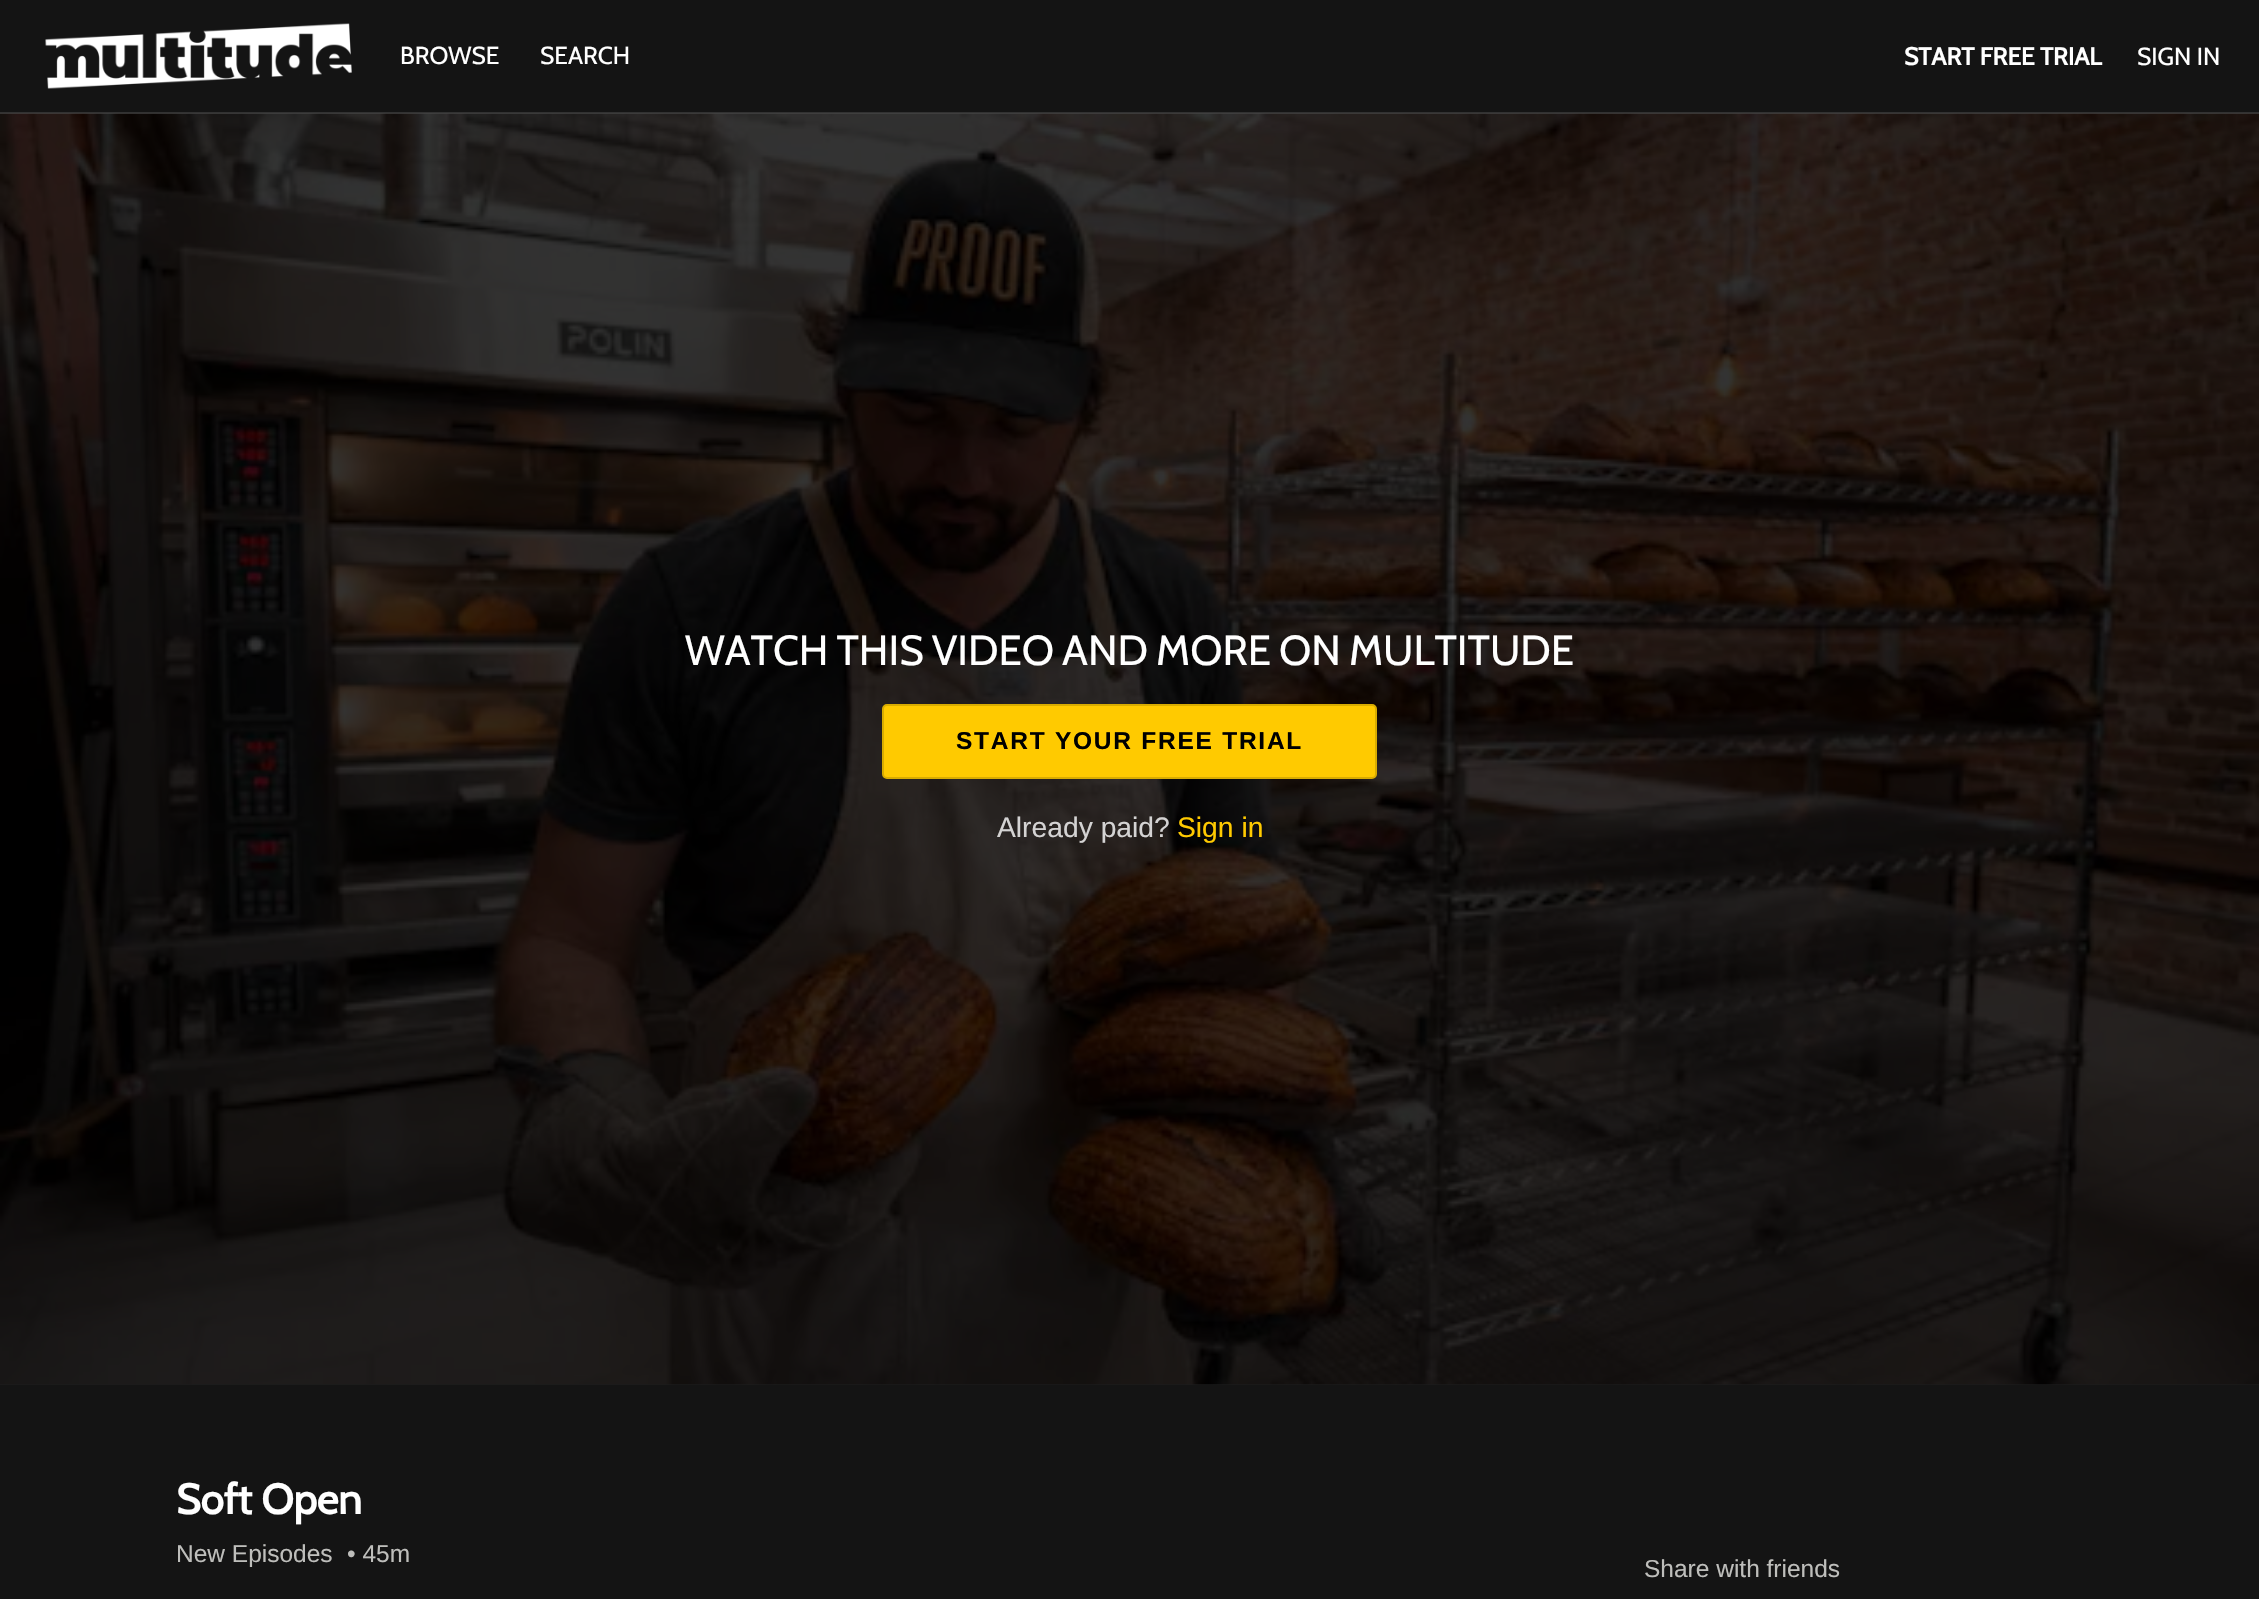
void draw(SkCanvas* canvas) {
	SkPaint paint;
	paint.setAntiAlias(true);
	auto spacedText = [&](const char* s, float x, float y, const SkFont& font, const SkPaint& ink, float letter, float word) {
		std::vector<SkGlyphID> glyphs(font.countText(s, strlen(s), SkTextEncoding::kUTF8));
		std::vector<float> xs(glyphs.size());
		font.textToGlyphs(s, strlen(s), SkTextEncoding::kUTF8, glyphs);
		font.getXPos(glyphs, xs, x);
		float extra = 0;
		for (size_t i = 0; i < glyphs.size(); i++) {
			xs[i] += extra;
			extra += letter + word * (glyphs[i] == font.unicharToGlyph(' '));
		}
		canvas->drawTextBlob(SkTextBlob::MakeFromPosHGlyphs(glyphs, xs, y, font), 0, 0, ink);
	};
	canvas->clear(0xff141414);
	paint.setColor(0xff323232);
	canvas->drawRect(SkRect::MakeXYWH(0, 112, 2259, 2), paint);
	canvas->drawImageRect(SkImages::DeferredFromEncodedData(SkData::MakeFromFileName("img1.png")), SkRect::MakeXYWH(45, 23, 307, 66), SkSamplingOptions());
	SkFont f1(fontMgr->matchFamilyStyle("Cabin", SkFontStyle::Normal()), 24.5);
	f1.setSubpixel(true);
	paint.setColor(0xffffffff);
	canvas->drawString("BROWSE", 400, 64, f1, paint);
	canvas->drawString("SEARCH", 540, 64, f1, paint);
	SkFont f2(fontMgr->matchFamilyStyle("Cabin", SkFontStyle::Bold()), 24.5);
	f2.setSubpixel(true);
	canvas->drawString("START FREE TRIAL", 1904, 65, f2, paint);
	canvas->drawString("SIGN IN", 2137, 65, f1, paint);
	canvas->drawImageRect(SkImages::DeferredFromEncodedData(SkData::MakeFromFileName("img2.png")), SkRect::MakeXYWH(0, 113, 2259, 1272), SkSamplingOptions());
	SkFont f3(fontMgr->matchFamilyStyle("Cabin", SkFontStyle::Normal()), 42);
	f3.setSubpixel(true);
	spacedText("WATCH THIS VIDEO AND MORE ON MULTITUDE", 685, 665, f3, paint, 0, -1.5);
	paint.setColor(0xffffca00);
	canvas->drawRoundRect(SkRect::MakeXYWH(883, 705, 493, 73), 4, 4, paint);
	paint.setStroke(true);
	paint.setStrokeWidth(2);
	paint.setColor(0xffd9ac00);
	canvas->drawRoundRect(SkRect::MakeXYWH(883, 705, 493, 73), 4, 4, paint);
	SkFont f4(fontMgr->matchFamilyStyle("Liberation Sans", SkFontStyle::Bold()), 24.5);
	f4.setSubpixel(true);
	paint.setStroke(false);
	paint.setColor(0xff000000);
	spacedText("START YOUR FREE TRIAL", 956, 749, f4, paint, 1.75, 0);
	SkFont f5(fontMgr->matchFamilyStyle("Liberation Sans", SkFontStyle::Normal()), 28.25);
	f5.setSubpixel(true);
	paint.setColor(0xffd4d3d3);
	canvas->drawString("Already paid?", 997, 837, f5, paint);
	paint.setColor(0xffffca00);
	canvas->drawString("Sign in", 1177, 837, f5, paint);
	SkFont f6(fontMgr->matchFamilyStyle("Cabin", SkFontStyle::Bold()), 42);
	f6.setSubpixel(true);
	paint.setColor(0xffffffff);
	canvas->drawString("Soft Open", 176, 1514, f6, paint);
	SkFont f7(fontMgr->matchFamilyStyle("Liberation Sans", SkFontStyle::Normal()), 24.5);
	f7.setSubpixel(true);
	paint.setColor(0xffbebebb);
	canvas->drawString("New Episodes", 176, 1562, f7, paint);
	canvas->drawString("• 45m", 347, 1562, f7, paint);
	canvas->drawString("Share with friends", 1644, 1577, f7, paint);
}
